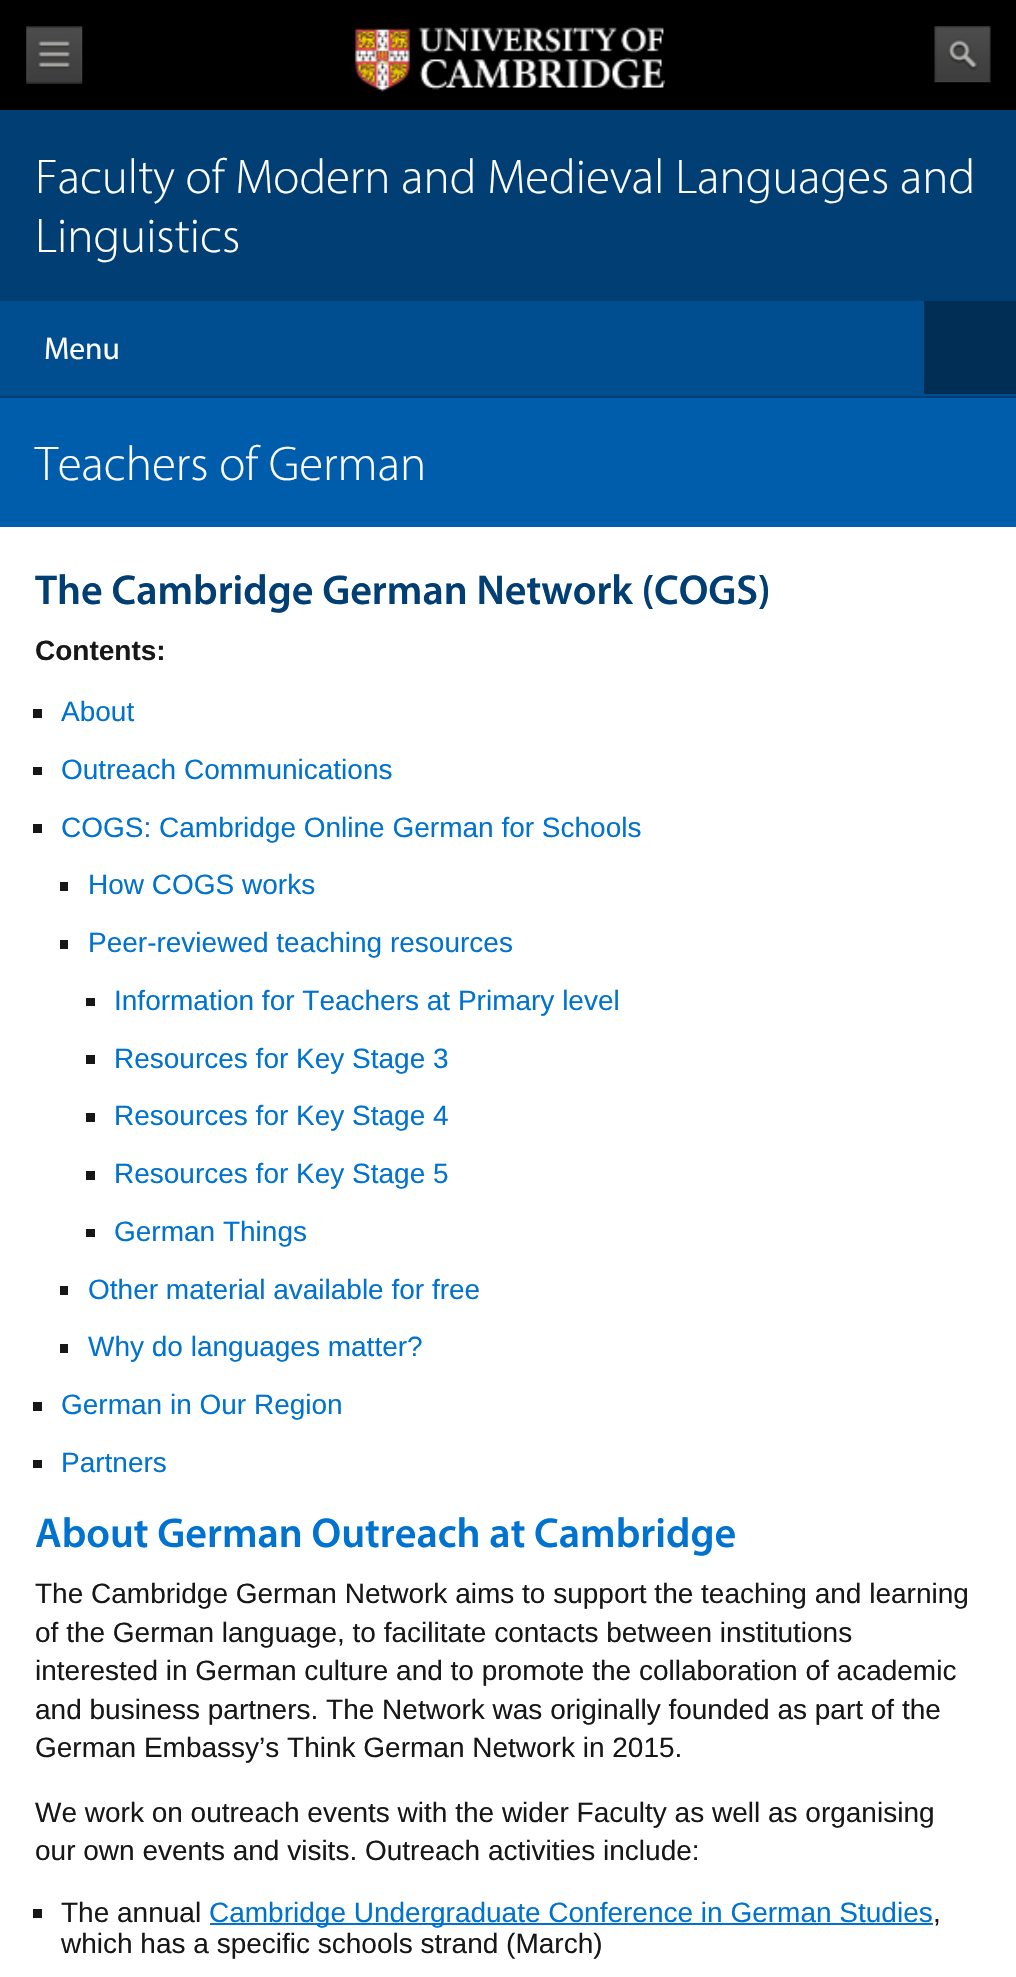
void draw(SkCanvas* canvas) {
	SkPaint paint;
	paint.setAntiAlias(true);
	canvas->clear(0xff000000);
	canvas->drawImageRect(SkImages::DeferredFromEncodedData(SkData::MakeFromFileName("img1.png")), SkRect::MakeXYWH(26, 26, 57, 58), SkSamplingOptions());
	canvas->drawImageRect(SkImages::DeferredFromEncodedData(SkData::MakeFromFileName("img2.png")), SkRect::MakeXYWH(354, 27, 311, 65), SkSamplingOptions());
	canvas->drawImageRect(SkImages::DeferredFromEncodedData(SkData::MakeFromFileName("img3.png")), SkRect::MakeXYWH(934, 26, 57, 57), SkSamplingOptions());
	paint.setColor(0xff003e74);
	canvas->drawRect(SkRect::MakeXYWH(0, 110, 1016, 191), paint);
	SkFont f1(fontMgr->matchFamilyStyle("Myriad", SkFontStyle(300, SkFontStyle::kNormal_Width, SkFontStyle::kUpright_Slant)), 49);
	f1.setSubpixel(true);
	paint.setColor(0xffffffff);
	canvas->drawString("Faculty of Modern and Medieval Languages and", 35, 193, f1, paint);
	canvas->drawString("Linguistics", 35, 252, f1, paint);
	paint.setColor(0xff004e8f);
	canvas->drawRect(SkRect::MakeXYWH(0, 301, 1016, 95), paint);
	paint.setColor(0xff003e74);
	canvas->drawRect(SkRect::MakeXYWH(0, 396, 1016, 2), paint);
	SkFont f2(fontMgr->matchFamilyStyle("Myriad", SkFontStyle::Normal()), 31.5);
	f2.setSubpixel(true);
	paint.setColor(0xffffffff);
	canvas->drawString("Menu", 44, 359, f2, paint);
	paint.setColor(0xff002e55);
	canvas->drawRect(SkRect::MakeXYWH(924, 301, 92, 93), paint);
	paint.setColor(0xff005dab);
	canvas->drawRect(SkRect::MakeXYWH(0, 398, 1016, 129), paint);
	paint.setColor(0xffffffff);
	canvas->drawString("Teachers of German", 35, 480, f1, paint);
	canvas->drawRect(SkRect::MakeXYWH(0, 527, 1016, 1450), paint);
	SkFont f3(fontMgr->matchFamilyStyle("Myriad", SkFontStyle(600, SkFontStyle::kNormal_Width, SkFontStyle::kUpright_Slant)), 42);
	f3.setSubpixel(true);
	paint.setColor(0xff003e74);
	canvas->drawString("The Cambridge German Network (COGS)", 35, 604, f3, paint);
	SkFont f4(fontMgr->matchFamilyStyle("Liberation Sans", SkFontStyle::Bold()), 28);
	f4.setSubpixel(true);
	paint.setColor(0xff171717);
	canvas->drawString("Contents:", 35, 660, f4, paint);
	canvas->drawRect(SkRect::MakeXYWH(33, 709, 9, 9), paint);
	SkFont f5(fontMgr->matchFamilyStyle("Liberation Sans", SkFontStyle::Normal()), 28);
	f5.setSubpixel(true);
	paint.setColor(0xff0072cf);
	canvas->drawString("About", 61, 721, f5, paint);
	paint.setColor(0xff171717);
	canvas->drawRect(SkRect::MakeXYWH(33, 767, 9, 8), paint);
	paint.setColor(0xff0072cf);
	canvas->drawString("Outreach Communications", 61, 779, f5, paint);
	paint.setColor(0xff171717);
	canvas->drawRect(SkRect::MakeXYWH(33, 824, 9, 9), paint);
	paint.setColor(0xff0072cf);
	canvas->drawString("COGS: Cambridge Online German for Schools", 61, 837, f5, paint);
	paint.setColor(0xff171717);
	canvas->drawRect(SkRect::MakeXYWH(60, 882, 8, 9), paint);
	paint.setColor(0xff0072cf);
	canvas->drawString("How COGS works", 88, 894, f5, paint);
	paint.setColor(0xff171717);
	canvas->drawRect(SkRect::MakeXYWH(60, 940, 8, 9), paint);
	paint.setColor(0xff0072cf);
	canvas->drawString("Peer-reviewed teaching resources", 88, 952, f5, paint);
	paint.setColor(0xff171717);
	canvas->drawRect(SkRect::MakeXYWH(86, 998, 9, 8), paint);
	paint.setColor(0xff0072cf);
	canvas->drawString("Information for Teachers at Primary level", 114, 1010, f5, paint);
	paint.setColor(0xff171717);
	canvas->drawRect(SkRect::MakeXYWH(86, 1055, 9, 9), paint);
	paint.setColor(0xff0072cf);
	canvas->drawString("Resources for Key Stage 3", 114, 1068, f5, paint);
	paint.setColor(0xff171717);
	canvas->drawRect(SkRect::MakeXYWH(86, 1113, 9, 9), paint);
	paint.setColor(0xff0072cf);
	canvas->drawString("Resources for Key Stage 4", 114, 1125, f5, paint);
	paint.setColor(0xff171717);
	canvas->drawRect(SkRect::MakeXYWH(86, 1171, 9, 9), paint);
	paint.setColor(0xff0072cf);
	canvas->drawString("Resources for Key Stage 5", 114, 1183, f5, paint);
	paint.setColor(0xff171717);
	canvas->drawRect(SkRect::MakeXYWH(86, 1229, 9, 8), paint);
	paint.setColor(0xff0072cf);
	canvas->drawString("German Things", 114, 1241, f5, paint);
	paint.setColor(0xff171717);
	canvas->drawRect(SkRect::MakeXYWH(60, 1286, 8, 9), paint);
	paint.setColor(0xff0072cf);
	canvas->drawString("Other material available for free", 88, 1299, f5, paint);
	paint.setColor(0xff171717);
	canvas->drawRect(SkRect::MakeXYWH(60, 1344, 8, 9), paint);
	paint.setColor(0xff0072cf);
	canvas->drawString("Why do languages matter?", 88, 1356, f5, paint);
	paint.setColor(0xff171717);
	canvas->drawRect(SkRect::MakeXYWH(33, 1402, 9, 9), paint);
	paint.setColor(0xff0072cf);
	canvas->drawString("German in Our Region", 61, 1414, f5, paint);
	paint.setColor(0xff171717);
	canvas->drawRect(SkRect::MakeXYWH(33, 1460, 9, 8), paint);
	paint.setColor(0xff0072cf);
	canvas->drawString("Partners", 61, 1472, f5, paint);
	canvas->drawString("About German Outreach at Cambridge", 35, 1547, f3, paint);
	paint.setColor(0xff171717);
	canvas->drawString("The Cambridge German Network aims to support the teaching and learning", 35, 1603, f5, paint);
	canvas->drawString("of the German language, to facilitate contacts between institutions", 35, 1642, f5, paint);
	canvas->drawString("interested in German culture and to promote the collaboration of academic", 35, 1680, f5, paint);
	canvas->drawString("and business partners. The Network was originally founded as part of the", 35, 1719, f5, paint);
	canvas->drawString("German Embassy’s Think German Network in 2015.", 35, 1757, f5, paint);
	canvas->drawString("We work on outreach events with the wider Faculty as well as organising", 35, 1822, f5, paint);
	canvas->drawString("our own events and visits. Outreach activities include:", 35, 1860, f5, paint);
	canvas->drawRect(SkRect::MakeXYWH(33, 1909, 9, 9), paint);
	canvas->drawString("The annual", 61, 1922, f5, paint);
	paint.setColor(0xff0072cf);
	canvas->drawRect(SkRect::MakeXYWH(210, 1923, 723, 2), paint);
	canvas->drawString("Cambridge Undergraduate Conference in German Studies", 209, 1922, f5, paint);
	paint.setColor(0xff171717);
	canvas->drawString(",", 933, 1922, f5, paint);
	canvas->drawString("which has a specific schools strand (March)", 61, 1953, f5, paint);
}
